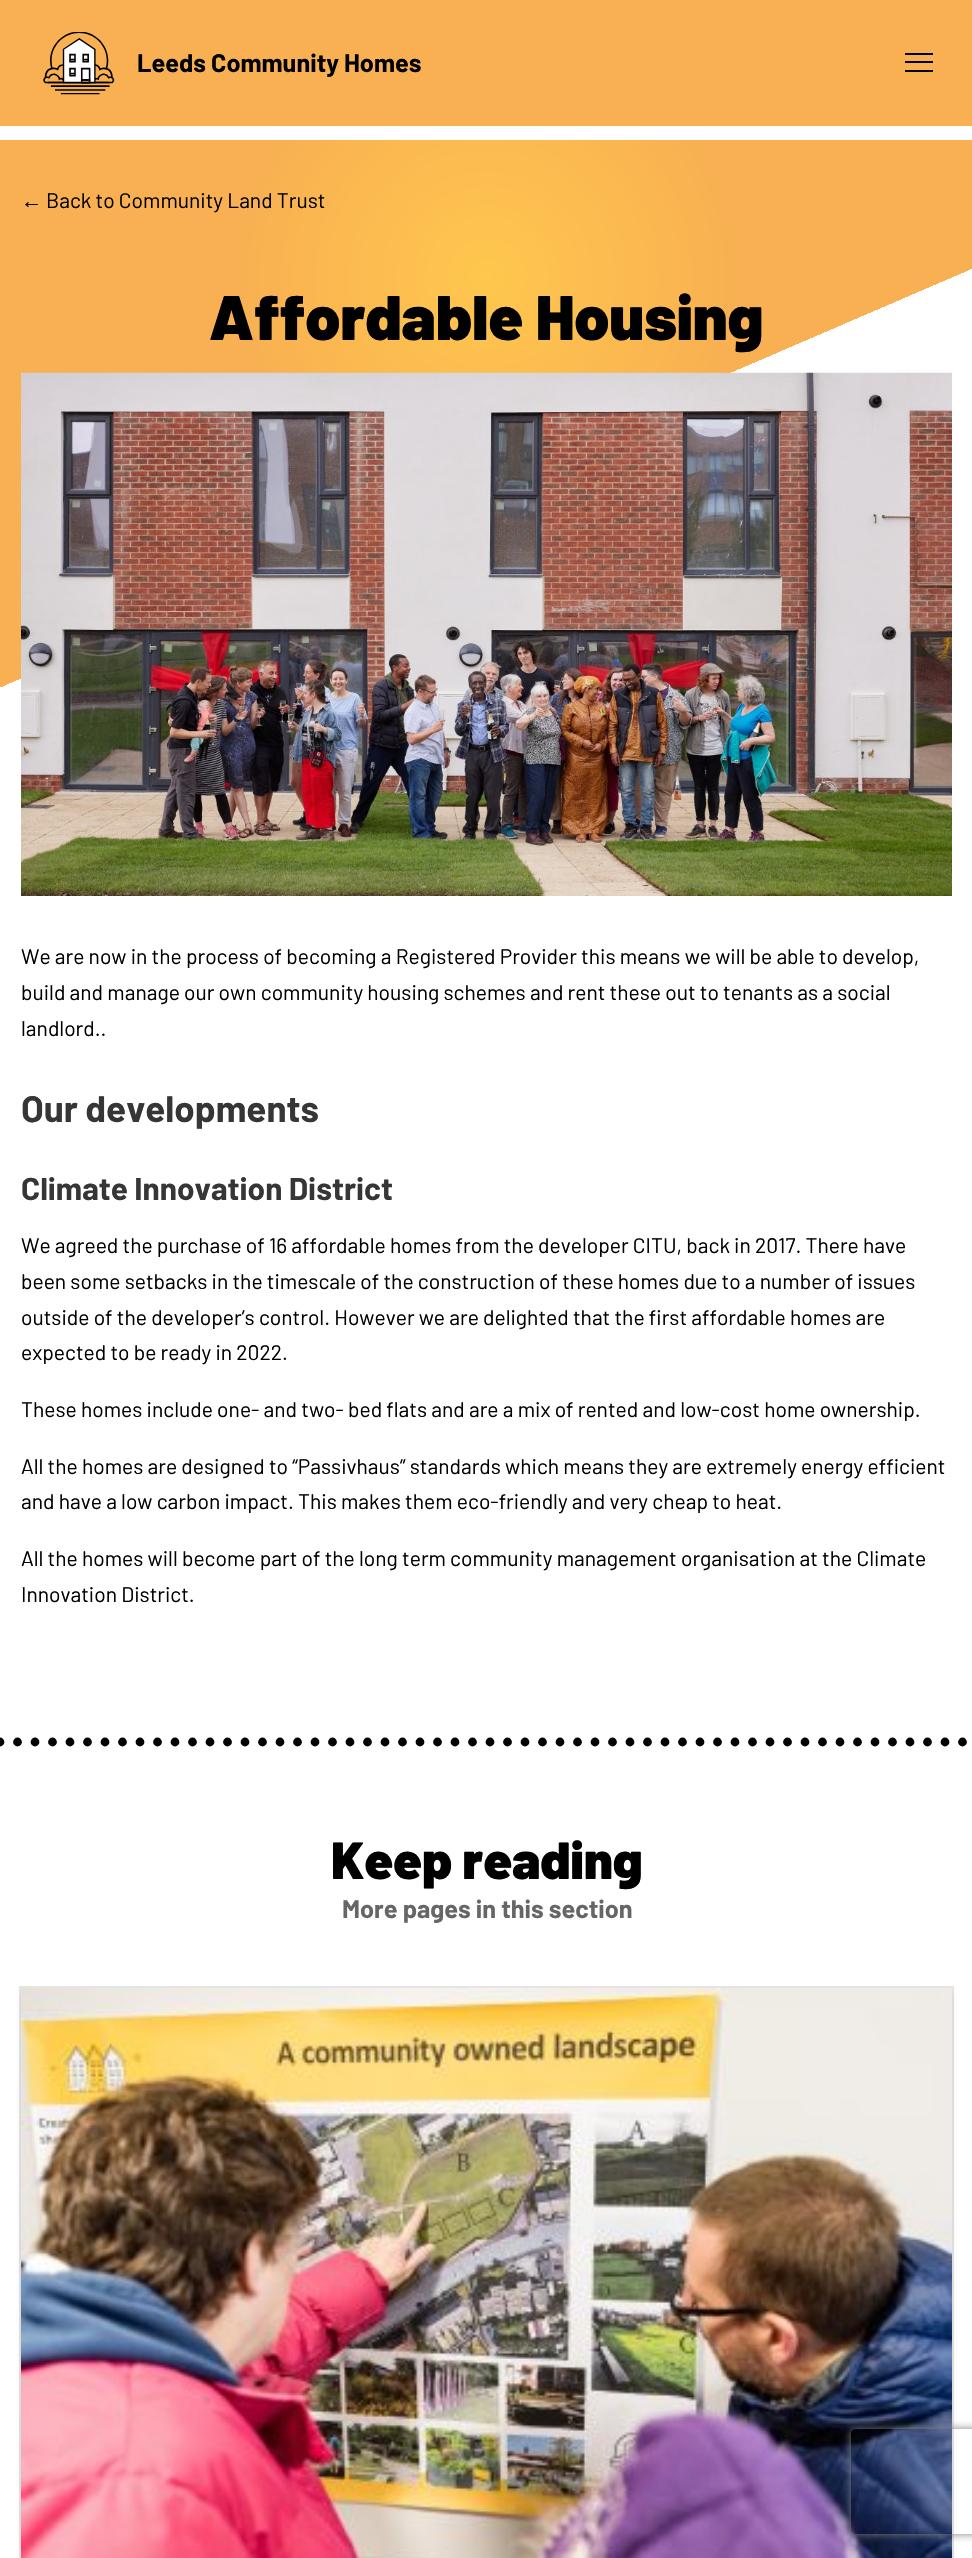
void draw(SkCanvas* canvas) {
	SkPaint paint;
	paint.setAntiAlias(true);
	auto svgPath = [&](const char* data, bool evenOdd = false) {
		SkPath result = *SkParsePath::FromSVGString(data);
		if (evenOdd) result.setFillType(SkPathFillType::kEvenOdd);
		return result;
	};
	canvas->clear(0xffffffff);
	paint.setColor(0xfff8b052);
	canvas->drawRect(SkRect::MakeXYWH(0, 0, 972, 126), paint);
	canvas->drawImageRect(SkImages::DeferredFromEncodedData(SkData::MakeFromFileName("img1.png")), SkRect::MakeXYWH(43, 32, 72, 63), SkSamplingOptions());
	SkFont f1(fontMgr->matchFamilyStyle("Barlow", SkFontStyle::Bold()), 25.25);
	f1.setSubpixel(true);
	paint.setColor(0xff000000);
	canvas->drawString("Leeds Community Homes", 137, 72, f1, paint);
	canvas->drawRect(SkRect::MakeXYWH(905, 53, 28, 2), paint);
	canvas->drawRect(SkRect::MakeXYWH(905, 61, 28, 2), paint);
	canvas->drawRect(SkRect::MakeXYWH(905, 70, 28, 2), paint);
	{
		const SkColor colors[] = {0xffffc74e, 0xfff8b052};
		const float stops[] = {0, 0.4};
		paint.setShader(SkGradientShader::MakeRadial({487, 277}, 637, colors, stops, 2, SkTileMode::kClamp));
		paint.setAlpha(255);
	}
	canvas->drawRect(SkRect::MakeXYWH(0, 140, 972, 547), paint);
	SkFont f2(fontMgr->matchFamilyStyle("Liberation Sans", SkFontStyle::Normal()), 21);
	f2.setSubpixel(true);
	paint.setShader(nullptr);
	paint.setColor(0xff000000);
	canvas->drawString("←", 21, 208, f2, paint);
	SkFont f3(fontMgr->matchFamilyStyle("Barlow", SkFontStyle::Normal()), 21);
	f3.setSubpixel(true);
	canvas->drawString("Back to Community Land Trust", 46, 208, f3, paint);
	{
		const SkColor colors[] = {0xffffffff, 0xffffffff, 0x00ffffff};
		const float stops[] = {0, 0.5, 0.5};
		const SkPoint ends[] = {{639, 832}, {334, 124}};
		paint.setShader(SkGradientShader::MakeLinear(ends, colors, stops, 3, SkTileMode::kClamp));
		paint.setAlpha(255);
	}
	canvas->drawRect(SkRect::MakeXYWH(3, 269, 969, 418), paint);
	SkFont f4(fontMgr->matchFamilyStyle("Barlow", SkFontStyle(900, SkFontStyle::kNormal_Width, SkFontStyle::kUpright_Slant)), 63);
	f4.setSubpixel(true);
	paint.setShader(nullptr);
	paint.setColor(0xff000000);
	canvas->drawString("Affordable Housing", 209, 340, f4, paint);
	canvas->drawImageRect(SkImages::DeferredFromEncodedData(SkData::MakeFromFileName("img2.png")), SkRect::MakeXYWH(21, 372, 931, 524), SkSamplingOptions());
	canvas->drawString("We are now in the process of becoming a Registered Provider this means we will be able to develop,", 21, 964, f3, paint);
	canvas->drawString("build and manage our own community housing schemes and rent these out to tenants as a social", 21, 1000, f3, paint);
	canvas->drawString("landlord..", 21, 1036, f3, paint);
	SkFont f5(fontMgr->matchFamilyStyle("Barlow", SkFontStyle::Bold()), 36.75);
	f5.setSubpixel(true);
	paint.setColor(0xff363636);
	canvas->drawString("Our developments", 21, 1122, f5, paint);
	SkFont f6(fontMgr->matchFamilyStyle("Barlow", SkFontStyle::Bold()), 31.5);
	f6.setSubpixel(true);
	canvas->drawString("Climate Innovation District", 21, 1200, f6, paint);
	paint.setColor(0xff000000);
	canvas->drawString("We agreed the purchase of 16 affordable homes from the developer CITU, back in 2017. There have", 21, 1253, f3, paint);
	canvas->drawString("been some setbacks in the timescale of the construction of these homes due to a number of issues", 21, 1289, f3, paint);
	canvas->drawString("outside of the developer’s control. However we are delighted that the first affordable homes are", 21, 1325, f3, paint);
	canvas->drawString("expected to be ready in 2022.", 21, 1360, f3, paint);
	canvas->drawString("These homes include one- and two- bed flats and are a mix of rented and low-cost home ownership.", 21, 1417, f3, paint);
	canvas->drawString("All the homes are designed to “Passivhaus” standards which means they are extremely energy efficient", 21, 1474, f3, paint);
	canvas->drawString("and have a low carbon impact. This makes them eco-friendly and very cheap to heat.", 21, 1509, f3, paint);
	canvas->drawString("All the homes will become part of the long term community management organisation at the Climate", 21, 1566, f3, paint);
	canvas->drawString("Innovation District.", 21, 1602, f3, paint);
	paint.setStroke(true);
	paint.setStrokeWidth(8.8);
	paint.setStrokeCap(SkPaint::kRound_Cap);
	paint.setPathEffect(SkDashPathEffect::Make({{0, 17.5f}}, 0));
	canvas->drawPath(svgPath("M0 1742H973"), paint);
	paint.setPathEffect(nullptr);
	SkFont f7(fontMgr->matchFamilyStyle("Barlow", SkFontStyle(900, SkFontStyle::kNormal_Width, SkFontStyle::kUpright_Slant)), 52.25);
	f7.setSubpixel(true);
	paint.setStroke(false);
	canvas->drawString("Keep reading", 331, 1879, f7, paint);
	paint.setColor(0xff666666);
	canvas->drawString("More pages in this section", 342, 1918, f1, paint);
	paint.setStroke(true);
	paint.setStrokeWidth(2);
	paint.setStrokeCap(SkPaint::kButt_Cap);
	paint.setColor(0xffe6e6e6);
	canvas->drawRect(SkRect::MakeXYWH(20, 1987, 933, 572), paint);
	paint.setStroke(false);
	paint.setColor(0x1a000000);
	paint.setMaskFilter(SkMaskFilter::MakeBlur(kNormal_SkBlurStyle, 2.5));
	canvas->drawRect(SkRect::MakeXYWH(21, 1992, 931, 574), paint);
	paint.setMaskFilter(nullptr);
	canvas->drawImageRect(SkImages::DeferredFromEncodedData(SkData::MakeFromFileName("img3.png")), SkRect::MakeXYWH(21, 1988, 931, 570), SkSamplingOptions());
	canvas->save();
	canvas->clipPath(svgPath("M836 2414H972V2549H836ZM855 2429H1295C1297 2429 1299 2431 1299 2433V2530C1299 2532 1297 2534 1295 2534H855C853 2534 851 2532 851 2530V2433C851 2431 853 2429 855 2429Z", true), true);
	paint.setColor(0xff808080);
	paint.setMaskFilter(SkMaskFilter::MakeBlur(kNormal_SkBlurStyle, 4.5));
	canvas->drawRoundRect(SkRect::MakeXYWH(851, 2429, 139, 105), 4, 4, paint);
	paint.setMaskFilter(nullptr);
	canvas->restore();
}
